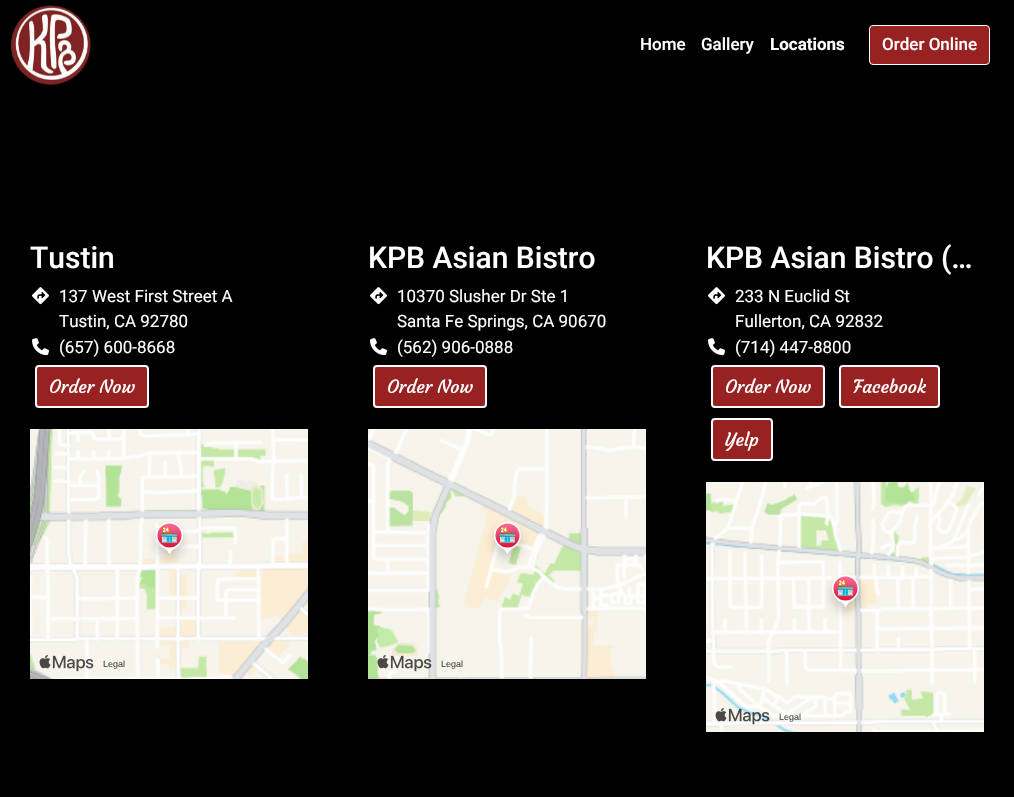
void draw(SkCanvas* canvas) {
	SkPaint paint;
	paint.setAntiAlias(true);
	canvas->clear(0xff000000);
	canvas->drawImageRect(SkImages::DeferredFromEncodedData(SkData::MakeFromFileName("img1.png")), SkRect::MakeXYWH(10, 5, 81, 80), SkSamplingOptions());
	SkFont f1(fontMgr->matchFamilyStyle("Roboto", SkFontStyle(500, SkFontStyle::kNormal_Width, SkFontStyle::kUpright_Slant)), 17);
	f1.setSubpixel(true);
	paint.setColor(0xffffffff);
	canvas->drawString("Home", 640, 50, f1, paint);
	canvas->drawString("Gallery", 701, 50, f1, paint);
	SkFont f2(fontMgr->matchFamilyStyle("Roboto", SkFontStyle::Bold()), 17);
	f2.setSubpixel(true);
	canvas->drawString("Locations", 770, 50, f2, paint);
	paint.setColor(0xff982121);
	canvas->drawRoundRect(SkRect::MakeXYWH(869.5, 25.5, 120, 39), 3.5, 3.5, paint);
	paint.setStroke(true);
	paint.setStrokeWidth(1);
	paint.setColor(0xffffffff);
	canvas->drawRoundRect(SkRect::MakeXYWH(869.5, 25.5, 120, 39), 3.5, 3.5, paint);
	paint.setStroke(false);
	canvas->drawString("Order Online", 882, 50, f1, paint);
	SkFont f3(fontMgr->matchFamilyStyle("Roboto", SkFontStyle(500, SkFontStyle::kNormal_Width, SkFontStyle::kUpright_Slant)), 30);
	f3.setSubpixel(true);
	canvas->drawString("Tustin", 30, 268, f3, paint);
	canvas->drawImageRect(SkImages::DeferredFromEncodedData(SkData::MakeFromFileName("img2.png")), SkRect::MakeXYWH(32, 287, 17, 18), SkSamplingOptions());
	SkFont f4(fontMgr->matchFamilyStyle("Roboto", SkFontStyle::Normal()), 17);
	f4.setSubpixel(true);
	canvas->drawString("137 West First Street A", 59, 302, f4, paint);
	canvas->drawString("Tustin, CA 92780", 59, 327, f4, paint);
	canvas->drawImageRect(SkImages::DeferredFromEncodedData(SkData::MakeFromFileName("img3.png")), SkRect::MakeXYWH(32, 338, 17, 18), SkSamplingOptions());
	canvas->drawString("(657) 600-8668", 59, 353, f4, paint);
	paint.setColor(0xff982121);
	canvas->drawRoundRect(SkRect::MakeXYWH(36, 366, 112, 41), 3, 3, paint);
	paint.setStroke(true);
	paint.setStrokeWidth(2);
	paint.setColor(0xffffffff);
	canvas->drawRoundRect(SkRect::MakeXYWH(36, 366, 112, 41), 3, 3, paint);
	SkFont f5(fontMgr->matchFamilyStyle("Courgette", SkFontStyle::Normal()), 18);
	f5.setSubpixel(true);
	paint.setStroke(false);
	canvas->drawString("Order Now", 49, 393, f5, paint);
	canvas->drawImageRect(SkImages::DeferredFromEncodedData(SkData::MakeFromFileName("img4.png")), SkRect::MakeXYWH(30, 429, 278, 250), SkSamplingOptions());
	canvas->drawImageRect(SkImages::DeferredFromEncodedData(SkData::MakeFromFileName("img5.png")), SkRect::MakeXYWH(39, 654, 55, 18), SkSamplingOptions());
	SkFont f6(fontMgr->matchFamilyStyle("Liberation Sans", SkFontStyle::Normal()), 9);
	f6.setSubpixel(true);
	paint.setColor(0xff4a4947);
	canvas->drawString("Legal", 103, 667, f6, paint);
	paint.setColor(0xffffffff);
	canvas->drawString("KPB Asian Bistro", 368, 268, f3, paint);
	canvas->drawImageRect(SkImages::DeferredFromEncodedData(SkData::MakeFromFileName("img2.png")), SkRect::MakeXYWH(370, 287, 17, 18), SkSamplingOptions());
	canvas->drawString("10370 Slusher Dr Ste 1", 397, 302, f4, paint);
	canvas->drawString("Santa Fe Springs, CA 90670", 397, 327, f4, paint);
	canvas->drawImageRect(SkImages::DeferredFromEncodedData(SkData::MakeFromFileName("img3.png")), SkRect::MakeXYWH(370, 338, 17, 18), SkSamplingOptions());
	canvas->drawString("(562) 906-0888", 397, 353, f4, paint);
	paint.setColor(0xff982121);
	canvas->drawRoundRect(SkRect::MakeXYWH(374, 366, 112, 41), 3, 3, paint);
	paint.setStroke(true);
	paint.setColor(0xffffffff);
	canvas->drawRoundRect(SkRect::MakeXYWH(374, 366, 112, 41), 3, 3, paint);
	paint.setStroke(false);
	canvas->drawString("Order Now", 387, 393, f5, paint);
	canvas->drawImageRect(SkImages::DeferredFromEncodedData(SkData::MakeFromFileName("img6.png")), SkRect::MakeXYWH(368, 429, 278, 250), SkSamplingOptions());
	canvas->drawImageRect(SkImages::DeferredFromEncodedData(SkData::MakeFromFileName("img7.png")), SkRect::MakeXYWH(377, 654, 55, 18), SkSamplingOptions());
	paint.setColor(0xff4a4947);
	canvas->drawString("Legal", 441, 667, f6, paint);
	paint.setColor(0xffffffff);
	canvas->drawString("KPB Asian Bistro (…", 706, 268, f3, paint);
	canvas->drawImageRect(SkImages::DeferredFromEncodedData(SkData::MakeFromFileName("img2.png")), SkRect::MakeXYWH(708, 287, 17, 18), SkSamplingOptions());
	canvas->drawString("233 N Euclid St", 735, 302, f4, paint);
	canvas->drawString("Fullerton, CA 92832", 735, 327, f4, paint);
	canvas->drawImageRect(SkImages::DeferredFromEncodedData(SkData::MakeFromFileName("img3.png")), SkRect::MakeXYWH(708, 338, 17, 18), SkSamplingOptions());
	canvas->drawString("(714) 447-8800", 735, 353, f4, paint);
	paint.setColor(0xff982121);
	canvas->drawRoundRect(SkRect::MakeXYWH(712, 366, 112, 41), 3, 3, paint);
	paint.setStroke(true);
	paint.setColor(0xffffffff);
	canvas->drawRoundRect(SkRect::MakeXYWH(712, 366, 112, 41), 3, 3, paint);
	paint.setStroke(false);
	canvas->drawString("Order Now", 725, 393, f5, paint);
	paint.setColor(0xff982121);
	canvas->drawRoundRect(SkRect::MakeXYWH(840, 366, 99, 41), 3, 3, paint);
	paint.setStroke(true);
	paint.setColor(0xffffffff);
	canvas->drawRoundRect(SkRect::MakeXYWH(840, 366, 99, 41), 3, 3, paint);
	paint.setStroke(false);
	canvas->drawString("Facebook", 853, 393, f5, paint);
	paint.setColor(0xff982121);
	canvas->drawRoundRect(SkRect::MakeXYWH(712, 419, 60, 41), 3, 3, paint);
	paint.setStroke(true);
	paint.setColor(0xffffffff);
	canvas->drawRoundRect(SkRect::MakeXYWH(712, 419, 60, 41), 3, 3, paint);
	paint.setStroke(false);
	canvas->drawString("Yelp", 725, 446, f5, paint);
	canvas->drawImageRect(SkImages::DeferredFromEncodedData(SkData::MakeFromFileName("img8.png")), SkRect::MakeXYWH(706, 482, 278, 250), SkSamplingOptions());
	canvas->drawImageRect(SkImages::DeferredFromEncodedData(SkData::MakeFromFileName("img9.png")), SkRect::MakeXYWH(715, 707, 55, 18), SkSamplingOptions());
	paint.setColor(0xff4a4947);
	canvas->drawString("Legal", 779, 720, f6, paint);
}
